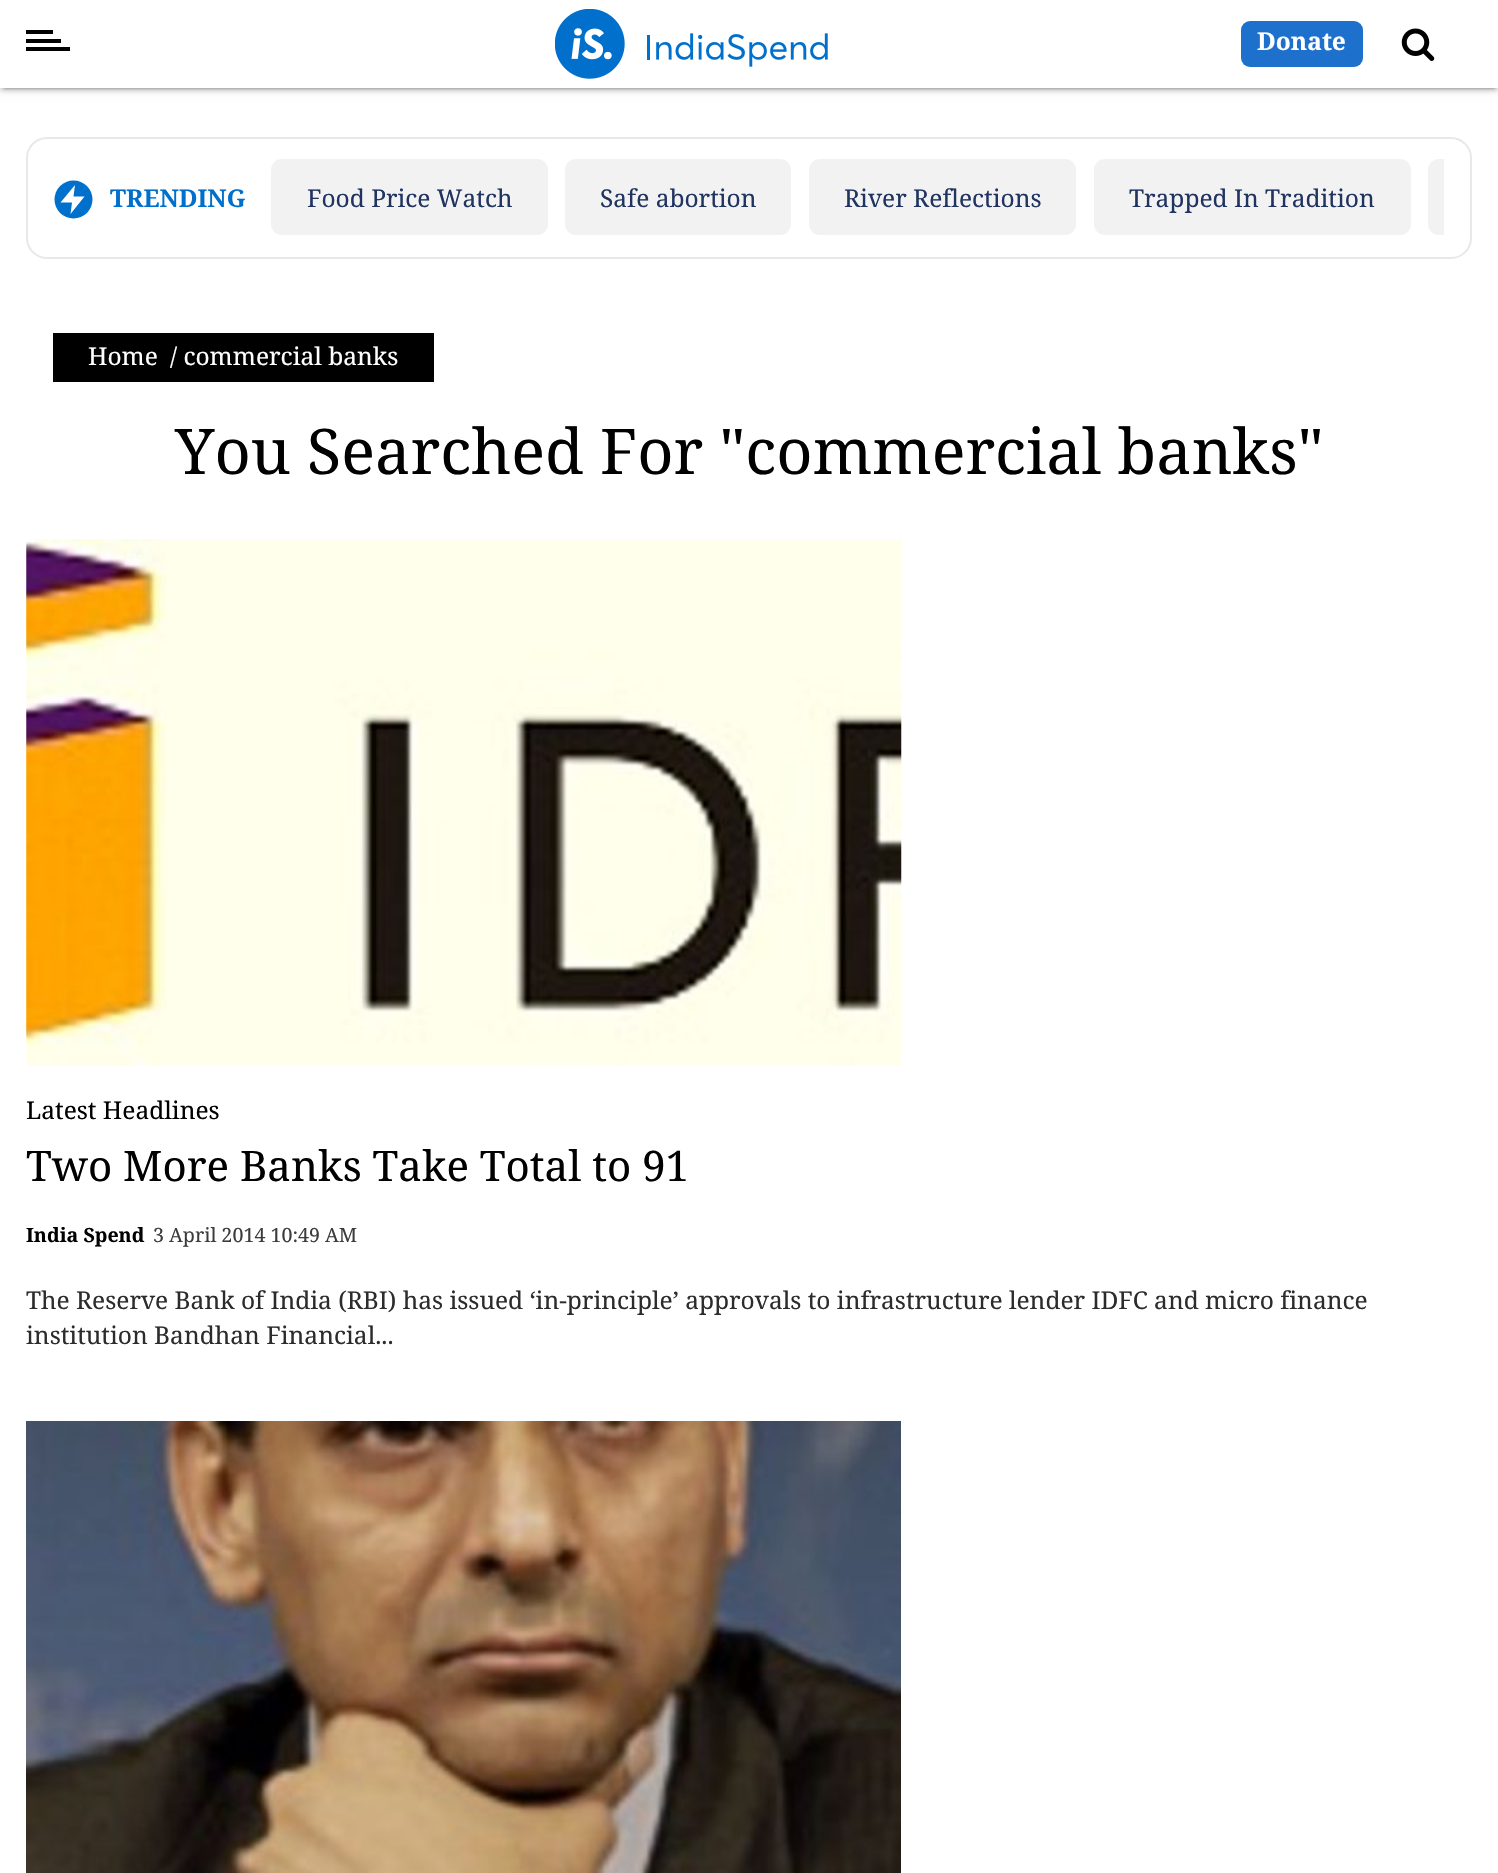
void draw(SkCanvas* canvas) {
	SkPaint paint;
	paint.setAntiAlias(true);
	auto svgPath = [&](const char* data, bool evenOdd = false) {
		SkPath result = *SkParsePath::FromSVGString(data);
		if (evenOdd) result.setFillType(SkPathFillType::kEvenOdd);
		return result;
	};
	canvas->clear(0xffffffff);
	paint.setColor(0x1f000000);
	paint.setMaskFilter(SkMaskFilter::MakeBlur(kNormal_SkBlurStyle, 4.5));
	canvas->drawRect(SkRect::MakeXYWH(0, 2, 1498, 87), paint);
	paint.setMaskFilter(nullptr);
	paint.setColor(0x33000000);
	paint.setMaskFilter(SkMaskFilter::MakeBlur(kNormal_SkBlurStyle, 1));
	canvas->drawRect(SkRect::MakeXYWH(4, 9, 1491, 80), paint);
	paint.setMaskFilter(nullptr);
	paint.setColor(0x24000000);
	paint.setMaskFilter(SkMaskFilter::MakeBlur(kNormal_SkBlurStyle, 2));
	canvas->drawRect(SkRect::MakeXYWH(0, 4, 1498, 87), paint);
	paint.setMaskFilter(nullptr);
	paint.setColor(0xffffffff);
	canvas->drawRect(SkRect::MakeXYWH(0, 0, 1498, 88), paint);
	paint.setColor(0xff000000);
	canvas->drawRect(SkRect::MakeXYWH(26, 47, 44, 4), paint);
	canvas->drawRect(SkRect::MakeXYWH(26, 30, 27, 4), paint);
	canvas->drawRect(SkRect::MakeXYWH(26, 39, 35, 4), paint);
	canvas->drawImageRect(SkImages::DeferredFromEncodedData(SkData::MakeFromFileName("img1.png")), SkRect::MakeXYWH(555, 9, 273, 70), SkSamplingOptions());
	paint.setColor(0xff1d70cc);
	canvas->drawRoundRect(SkRect::MakeXYWH(1241, 21, 122, 46), 9, 9, paint);
	SkFont f1(fontMgr->matchFamilyStyle("Noto Serif", SkFontStyle::Bold()), 24.5);
	f1.setSubpixel(true);
	paint.setColor(0xffffffff);
	canvas->drawString("Donate", 1257, 50, f1, paint);
	canvas->drawImageRect(SkImages::DeferredFromEncodedData(SkData::MakeFromFileName("img2.png")), SkRect::MakeXYWH(1401, 28, 34, 33), SkSamplingOptions());
	paint.setStroke(true);
	paint.setStrokeWidth(2);
	paint.setColor(0xffe8e8e8);
	canvas->drawRoundRect(SkRect::MakeXYWH(27, 138, 1444, 120), 20, 20, paint);
	paint.setStroke(false);
	paint.setColor(0xff0070cd);
	canvas->drawCircle(73.5, 199.5, 19, paint);
	paint.setColor(0xffffffff);
	canvas->drawPath(svgPath("M75 185L60.5 202.5H72L70.5 214L84.5 196.5H73.5Z"), paint);
	paint.setColor(0xff0070cd);
	canvas->drawString("TRENDING", 110, 207, f1, paint);
	paint.setColor(0xfff2f2f2);
	canvas->drawRoundRect(SkRect::MakeXYWH(271, 159, 277, 76), 11, 11, paint);
	SkFont f2(fontMgr->matchFamilyStyle("Noto Serif", SkFontStyle::Normal()), 24.5);
	f2.setSubpixel(true);
	paint.setColor(0xff203361);
	canvas->drawString("Food Price Watch", 307, 207, f2, paint);
	paint.setColor(0xfff2f2f2);
	canvas->drawRoundRect(SkRect::MakeXYWH(565, 159, 226, 76), 11, 11, paint);
	paint.setColor(0xff203361);
	canvas->drawString("Safe abortion", 600, 207, f2, paint);
	paint.setColor(0xfff2f2f2);
	canvas->drawRoundRect(SkRect::MakeXYWH(809, 159, 267, 76), 11, 11, paint);
	paint.setColor(0xff203361);
	canvas->drawString("River Reflections", 844, 207, f2, paint);
	paint.setColor(0xfff2f2f2);
	canvas->drawRoundRect(SkRect::MakeXYWH(1094, 159, 317, 76), 11, 11, paint);
	paint.setColor(0xff203361);
	canvas->drawString("Trapped In Tradition", 1129, 207, f2, paint);
	paint.setColor(0xfff2f2f2);
	canvas->drawPath(svgPath("M1439 159H1444V235H1439C1433 235 1428 230 1428 224V170C1428 164 1433 159 1439 159Z"), paint);
	paint.setColor(0xff000000);
	canvas->drawRect(SkRect::MakeXYWH(53, 333, 381, 49), paint);
	paint.setColor(0xffffffff);
	canvas->drawString("Home", 88, 365, f2, paint);
	canvas->drawString("/ commercial banks", 170, 365, f2, paint);
	SkFont f3(fontMgr->matchFamilyStyle("Noto Serif", SkFontStyle::Normal()), 63);
	f3.setSubpixel(true);
	paint.setColor(0xff000000);
	canvas->drawString("You Searched For \"commercial banks\"", 175, 474, f3, paint);
	canvas->drawImageRect(SkImages::DeferredFromEncodedData(SkData::MakeFromFileName("img3.png")), SkRect::MakeXYWH(26, 539, 876, 527), SkSamplingOptions());
	canvas->drawString("Latest Headlines", 26, 1119, f2, paint);
	SkFont f4(fontMgr->matchFamilyStyle("Noto Serif", SkFontStyle::Normal()), 42);
	f4.setSubpixel(true);
	canvas->drawString("Two More Banks Take Total to 91", 26, 1181, f4, paint);
	SkFont f5(fontMgr->matchFamilyStyle("Noto Serif", SkFontStyle::Bold()), 19.6);
	f5.setSubpixel(true);
	canvas->drawString("India Spend", 26, 1242, f5, paint);
	SkFont f6(fontMgr->matchFamilyStyle("Noto Serif", SkFontStyle::Normal()), 19.6);
	f6.setSubpixel(true);
	paint.setColor(0xff3c3c3c);
	canvas->drawString("3 April 2014 10:49 AM", 153, 1242, f6, paint);
	paint.setColor(0xff2c2c2c);
	canvas->drawString("The Reserve Bank of India (RBI) has issued ‘in-principle’ approvals to infrastructure lender IDFC and micro finance", 26, 1309, f2, paint);
	canvas->drawString("institution Bandhan Financial...", 26, 1344, f2, paint);
	canvas->drawImageRect(SkImages::DeferredFromEncodedData(SkData::MakeFromFileName("img4.png")), SkRect::MakeXYWH(26, 1421, 875, 452), SkSamplingOptions());
}
